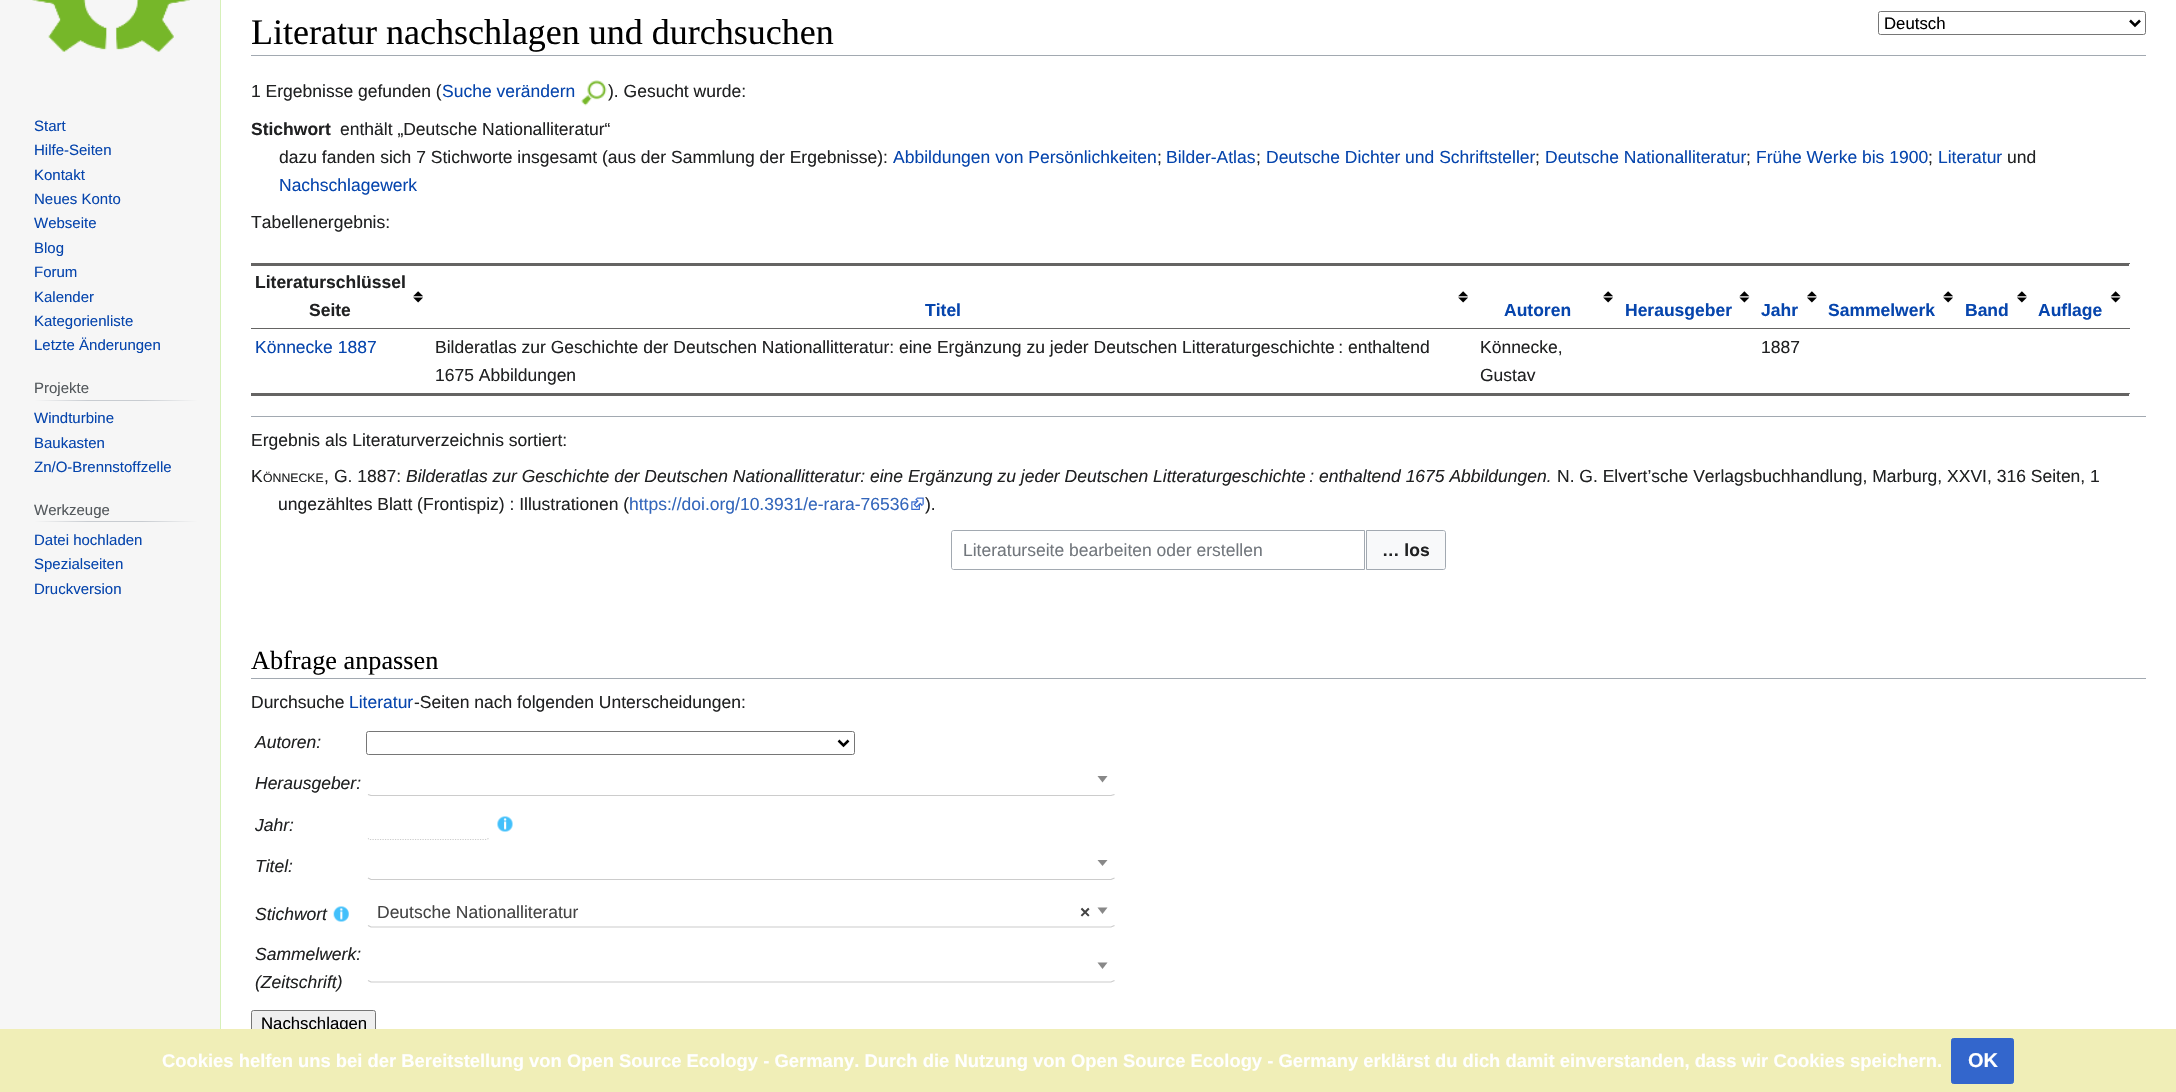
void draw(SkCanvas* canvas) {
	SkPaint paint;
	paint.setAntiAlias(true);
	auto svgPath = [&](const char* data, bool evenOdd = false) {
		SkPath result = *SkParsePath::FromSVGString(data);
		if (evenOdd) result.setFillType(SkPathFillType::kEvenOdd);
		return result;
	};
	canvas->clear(0xfff6f6f6);
	canvas->drawImageRect(SkImages::DeferredFromEncodedData(SkData::MakeFromFileName("img1.png")), SkRect::MakeXYWH(32, 0, 158, 52), SkSamplingOptions());
	SkFont f1(fontMgr->matchFamilyStyle("Liberation Sans", SkFontStyle::Normal()), 15);
	f1.setSubpixel(true);
	paint.setColor(0xff0645ad);
	canvas->drawString("Start", 34, 131, f1, paint);
	canvas->drawString("Hilfe-Seiten", 34, 155, f1, paint);
	canvas->drawString("Kontakt", 34, 180, f1, paint);
	canvas->drawString("Neues Konto", 34, 204, f1, paint);
	canvas->drawString("Webseite", 34, 228, f1, paint);
	canvas->drawString("Blog", 34, 253, f1, paint);
	canvas->drawString("Forum", 34, 277, f1, paint);
	canvas->drawString("Kalender", 34, 302, f1, paint);
	canvas->drawString("Kategorienliste", 34, 326, f1, paint);
	canvas->drawString("Letzte Änderungen", 34, 350, f1, paint);
	{
		const SkColor colors[] = {0xfff6f6f6, 0xffc8ccd1, 0xffc8ccd1, 0xfff6f6f6};
		const float stops[] = {0, 0.33, 0.66, 1};
		const SkPoint ends[] = {{34, 401}, {198, 401}};
		paint.setShader(SkGradientShader::MakeLinear(ends, colors, stops, 4, SkTileMode::kClamp));
		paint.setAlpha(255);
	}
	canvas->drawRect(SkRect::MakeXYWH(34, 400, 164, 1), paint);
	paint.setShader(nullptr);
	paint.setColor(0xff54595d);
	canvas->drawString("Projekte", 34, 393, f1, paint);
	paint.setColor(0xff0645ad);
	canvas->drawString("Windturbine", 34, 423, f1, paint);
	canvas->drawString("Baukasten", 34, 448, f1, paint);
	canvas->drawString("Zn/O-Brennstoffzelle", 34, 472, f1, paint);
	{
		const SkColor colors[] = {0xfff6f6f6, 0xffc8ccd1, 0xffc8ccd1, 0xfff6f6f6};
		const float stops[] = {0, 0.33, 0.66, 1};
		const SkPoint ends[] = {{34, 522}, {198, 522}};
		paint.setShader(SkGradientShader::MakeLinear(ends, colors, stops, 4, SkTileMode::kClamp));
		paint.setAlpha(255);
	}
	canvas->drawRect(SkRect::MakeXYWH(34, 521, 164, 1), paint);
	paint.setShader(nullptr);
	paint.setColor(0xff54595d);
	canvas->drawString("Werkzeuge", 34, 515, f1, paint);
	paint.setColor(0xff0645ad);
	canvas->drawString("Datei hochladen", 34, 545, f1, paint);
	canvas->drawString("Spezialseiten", 34, 569, f1, paint);
	canvas->drawString("Druckversion", 34, 594, f1, paint);
	paint.setColor(0xffffffff);
	canvas->drawPath(svgPath("M221-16H2164C2171-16 2176-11 2176-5V1064C2176 1070 2171 1075 2164 1075H232C226 1075 221 1070 221 1064Z"), paint);
	paint.setColor(0xffd6f0b9);
	canvas->drawPath(svgPath("M221-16H222L220-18V1064C220 1067 221 1070 224 1073V1072C222 1070 221 1067 221 1064Z"), paint);
	paint.setColor(0xffa2a9b1);
	canvas->drawRect(SkRect::MakeXYWH(251, 55, 1895, 1), paint);
	SkFont f2(fontMgr->matchFamilyStyle("Liberation Serif", SkFontStyle::Normal()), 36);
	f2.setSubpixel(true);
	paint.setColor(0xff000000);
	canvas->drawString("Literatur nachschlagen und durchsuchen", 251, 44, f2, paint);
	paint.setStroke(true);
	paint.setStrokeWidth(1);
	paint.setColor(0xff767676);
	canvas->drawRoundRect(SkRect::MakeXYWH(1878.5, 11.5, 267, 23), 2, 2, paint);
	paint.setStrokeWidth(2.5);
	paint.setColor(0xff000000);
	canvas->drawPath(svgPath("M2130 20.5L2135 25.5L2140 20.5"), paint);
	SkFont f3(fontMgr->matchFamilyStyle("Liberation Sans", SkFontStyle::Normal()), 16.75);
	f3.setSubpixel(true);
	paint.setStroke(false);
	canvas->drawString("Deutsch", 1884, 29, f3, paint);
	SkFont f4(fontMgr->matchFamilyStyle("Liberation Sans", SkFontStyle::Normal()), 17.5);
	f4.setSubpixel(true);
	paint.setColor(0xff202122);
	canvas->drawString("1 Ergebnisse gefunden (", 251, 97, f4, paint);
	paint.setColor(0xff0645ad);
	canvas->drawString("Suche verändern", 442, 97, f4, paint);
	canvas->drawImageRect(SkImages::DeferredFromEncodedData(SkData::MakeFromFileName("img2.png")), SkRect::MakeXYWH(581, 80, 26, 26), SkSamplingOptions());
	paint.setColor(0xff202122);
	canvas->drawString("). Gesucht wurde:", 608, 97, f4, paint);
	SkFont f5(fontMgr->matchFamilyStyle("Liberation Sans", SkFontStyle::Bold()), 17.5);
	f5.setSubpixel(true);
	canvas->drawString("Stichwort", 251, 135, f5, paint);
	canvas->drawString("enthält „Deutsche Nationalliteratur“", 340, 135, f4, paint);
	canvas->drawString("dazu fanden sich 7 Stichworte insgesamt (aus der Sammlung der Ergebnisse):", 279, 163, f4, paint);
	paint.setColor(0xff0645ad);
	canvas->drawString("Abbildungen von Persönlichkeiten", 893, 163, f4, paint);
	paint.setColor(0xff202122);
	canvas->drawString(";", 1157, 163, f4, paint);
	paint.setColor(0xff0645ad);
	canvas->drawString("Bilder-Atlas", 1166, 163, f4, paint);
	paint.setColor(0xff202122);
	canvas->drawString(";", 1256, 163, f4, paint);
	paint.setColor(0xff0645ad);
	canvas->drawString("Deutsche Dichter und Schriftsteller", 1266, 163, f4, paint);
	paint.setColor(0xff202122);
	canvas->drawString(";", 1535, 163, f4, paint);
	paint.setColor(0xff0645ad);
	canvas->drawString("Deutsche Nationalliteratur", 1545, 163, f4, paint);
	paint.setColor(0xff202122);
	canvas->drawString(";", 1746, 163, f4, paint);
	paint.setColor(0xff0645ad);
	canvas->drawString("Frühe Werke bis 1900", 1756, 163, f4, paint);
	paint.setColor(0xff202122);
	canvas->drawString(";", 1928, 163, f4, paint);
	paint.setColor(0xff0645ad);
	canvas->drawString("Literatur", 1938, 163, f4, paint);
	paint.setColor(0xff202122);
	canvas->drawString("und", 2007, 163, f4, paint);
	paint.setColor(0xff0645ad);
	canvas->drawString("Nachschlagewerk", 279, 191, f4, paint);
	paint.setColor(0xff202122);
	canvas->drawString("Tabellenergebnis:", 251, 228, f4, paint);
	paint.setColor(0xff656463);
	canvas->drawRect(SkRect::MakeXYWH(251, 263, 1878, 3), paint);
	canvas->drawRect(SkRect::MakeXYWH(251, 393, 1878, 3), paint);
	canvas->drawImageRect(SkImages::DeferredFromEncodedData(SkData::MakeFromFileName("img3.png")), SkRect::MakeXYWH(413, 291, 10, 12), SkSamplingOptions());
	paint.setColor(0xff202122);
	canvas->drawString("Literaturschlüssel", 255, 288, f5, paint);
	canvas->drawString("Seite", 309, 316, f5, paint);
	canvas->drawImageRect(SkImages::DeferredFromEncodedData(SkData::MakeFromFileName("img3.png")), SkRect::MakeXYWH(1458, 291, 10, 12), SkSamplingOptions());
	paint.setColor(0xff0645ad);
	canvas->drawString("Titel", 925, 316, f5, paint);
	canvas->drawImageRect(SkImages::DeferredFromEncodedData(SkData::MakeFromFileName("img3.png")), SkRect::MakeXYWH(1603, 291, 10, 12), SkSamplingOptions());
	canvas->drawString("Autoren", 1504, 316, f5, paint);
	canvas->drawImageRect(SkImages::DeferredFromEncodedData(SkData::MakeFromFileName("img4.png")), SkRect::MakeXYWH(1739, 291, 11, 12), SkSamplingOptions());
	canvas->drawString("Herausgeber", 1625, 316, f5, paint);
	canvas->drawImageRect(SkImages::DeferredFromEncodedData(SkData::MakeFromFileName("img5.png")), SkRect::MakeXYWH(1807, 291, 10, 12), SkSamplingOptions());
	canvas->drawString("Jahr", 1761, 316, f5, paint);
	canvas->drawImageRect(SkImages::DeferredFromEncodedData(SkData::MakeFromFileName("img3.png")), SkRect::MakeXYWH(1943, 291, 10, 12), SkSamplingOptions());
	canvas->drawString("Sammelwerk", 1828, 316, f5, paint);
	canvas->drawImageRect(SkImages::DeferredFromEncodedData(SkData::MakeFromFileName("img5.png")), SkRect::MakeXYWH(2017, 291, 10, 12), SkSamplingOptions());
	canvas->drawString("Band", 1965, 316, f5, paint);
	canvas->drawImageRect(SkImages::DeferredFromEncodedData(SkData::MakeFromFileName("img6.png")), SkRect::MakeXYWH(2110, 291, 11, 12), SkSamplingOptions());
	paint.setColor(0xff656463);
	canvas->drawRect(SkRect::MakeXYWH(2129, 263, 1, 1), paint);
	canvas->drawRect(SkRect::MakeXYWH(251, 328, 1879, 1), paint);
	paint.setColor(0xff0645ad);
	canvas->drawString("Auflage", 2038, 316, f5, paint);
	canvas->drawString("Könnecke 1887", 255, 353, f4, paint);
	paint.setColor(0xff202122);
	canvas->drawString("Bilderatlas zur Geschichte der Deutschen Nationallitteratur: eine Ergänzung zu jeder Deutschen Litteraturgeschichte : enthaltend", 435, 353, f4, paint);
	canvas->drawString("1675 Abbildungen", 435, 381, f4, paint);
	canvas->drawString("Könnecke,", 1480, 353, f4, paint);
	canvas->drawString("Gustav", 1480, 381, f4, paint);
	canvas->drawString("1887", 1761, 353, f4, paint);
	paint.setColor(0xff808080);
	canvas->drawRect(SkRect::MakeXYWH(2129, 393, 1, 1), paint);
	paint.setColor(0xffa2a9b1);
	canvas->drawRect(SkRect::MakeXYWH(251, 416, 1895, 1), paint);
	paint.setColor(0xff202122);
	canvas->drawString("Ergebnis als Literaturverzeichnis sortiert:", 251, 446, f4, paint);
	canvas->drawString("K", 251, 482, f4, paint);
	SkFont f6(fontMgr->matchFamilyStyle("Liberation Sans", SkFontStyle::Normal()), 12.25);
	f6.setSubpixel(true);
	canvas->drawString("ÖNNECKE", 263, 482, f6, paint);
	canvas->drawString(",", 324, 482, f4, paint);
	canvas->drawString("G. 1887:", 334, 482, f4, paint);
	SkFont f7(fontMgr->matchFamilyStyle("Liberation Sans", SkFontStyle::Italic()), 17.5);
	f7.setSubpixel(true);
	canvas->drawString("Bilderatlas zur Geschichte der Deutschen Nationallitteratur: eine Ergänzung zu jeder Deutschen Litteraturgeschichte : enthaltend 1675 Abbildungen.", 406, 482, f7, paint);
	canvas->drawString("N. G. Elvert’sche Verlagsbuchhandlung, Marburg, XXVI, 316 Seiten, 1", 1557, 482, f4, paint);
	canvas->drawString("ungezähltes Blatt (Frontispiz) : Illustrationen (", 278, 510, f4, paint);
	paint.setColor(0xff3366bb);
	canvas->drawString("https://doi.org/10.3931/e-rara-76536", 629, 510, f4, paint);
	canvas->drawImageRect(SkImages::DeferredFromEncodedData(SkData::MakeFromFileName("img7.png")), SkRect::MakeXYWH(911, 497, 13, 13), SkSamplingOptions());
	paint.setColor(0xff202122);
	canvas->drawString(").", 925, 510, f4, paint);
	paint.setStroke(true);
	paint.setStrokeWidth(1);
	paint.setColor(0xffa2a9b1);
	canvas->drawPath(svgPath("M953.5 530.5H1364.5V569.5H953.5C952.5 569.5 951.5 568.5 951.5 567.5V532.5C951.5 531.5 952.5 530.5 953.5 530.5Z"), paint);
	paint.setStroke(false);
	paint.setColor(0xff72777d);
	canvas->drawString("Literaturseite bearbeiten oder erstellen", 963, 556, f4, paint);
	paint.setColor(0xfff8f9fa);
	canvas->drawPath(svgPath("M1366.5 530.5H1443.5C1444.5 530.5 1445.5 531.5 1445.5 532.5V567.5C1445.5 568.5 1444.5 569.5 1443.5 569.5H1366.5Z"), paint);
	paint.setStroke(true);
	paint.setColor(0xffa2a9b1);
	canvas->drawPath(svgPath("M1366.5 530.5H1443.5C1444.5 530.5 1445.5 531.5 1445.5 532.5V567.5C1445.5 568.5 1444.5 569.5 1443.5 569.5H1366.5Z"), paint);
	paint.setStroke(false);
	paint.setColor(0xff202122);
	canvas->drawString("… los", 1382, 556, f5, paint);
	paint.setColor(0xffa2a9b1);
	canvas->drawRect(SkRect::MakeXYWH(251, 678, 1895, 1), paint);
	SkFont f8(fontMgr->matchFamilyStyle("Liberation Serif", SkFontStyle::Normal()), 26.25);
	f8.setSubpixel(true);
	paint.setColor(0xff000000);
	canvas->drawString("Abfrage anpassen", 251, 669, f8, paint);
	paint.setColor(0xff202122);
	canvas->drawString("Durchsuche", 251, 708, f4, paint);
	paint.setColor(0xff0645ad);
	canvas->drawString("Literatur", 349, 708, f4, paint);
	paint.setColor(0xff202122);
	canvas->drawString("-Seiten nach folgenden Unterscheidungen:", 414, 708, f4, paint);
	canvas->drawString("Autoren:", 255, 748, f7, paint);
	paint.setStroke(true);
	paint.setColor(0xff767676);
	canvas->drawRoundRect(SkRect::MakeXYWH(366.5, 731.5, 488, 23), 2, 2, paint);
	paint.setStrokeWidth(2.5);
	paint.setColor(0xff000000);
	canvas->drawPath(svgPath("M838.5 740.5L843.5 745.5L848.5 740.5"), paint);
	paint.setStroke(false);
	paint.setColor(0xff202122);
	canvas->drawString("Herausgeber:", 255, 789, f7, paint);
	paint.setStroke(true);
	paint.setStrokeWidth(1.2);
	paint.setColor(0xffcccccc);
	canvas->drawPath(svgPath("M1114.5 794.5L1111 795.5H371L368 794.5"), paint);
	paint.setStroke(false);
	paint.setColor(0xff888888);
	canvas->drawPath(svgPath("M1097.5 776H1107.5L1102.5 782.5Z"), paint);
	paint.setColor(0xff202122);
	canvas->drawString("Jahr:", 255, 831, f7, paint);
	canvas->drawImageRect(SkImages::DeferredFromEncodedData(SkData::MakeFromFileName("img8.png")), SkRect::MakeXYWH(497, 816, 16, 16), SkSamplingOptions());
	paint.setStroke(true);
	paint.setColor(0xffcccccc);
	paint.setPathEffect(SkDashPathEffect::Make({{1.25f, 1.25f}}, 0));
	canvas->drawPath(svgPath("M488.5 838.5L486 839.5H370L368 838.5"), paint);
	paint.setPathEffect(nullptr);
	paint.setStroke(false);
	paint.setColor(0xff202122);
	canvas->drawString("Titel:", 255, 872, f7, paint);
	paint.setStroke(true);
	paint.setColor(0xffcccccc);
	canvas->drawPath(svgPath("M1114.5 878L1111 879.5H371L368 878"), paint);
	paint.setStroke(false);
	paint.setColor(0xff888888);
	canvas->drawPath(svgPath("M1097.5 860H1107.5L1102.5 866Z"), paint);
	paint.setColor(0xff202122);
	canvas->drawString("Stichwort", 255, 920, f7, paint);
	canvas->drawImageRect(SkImages::DeferredFromEncodedData(SkData::MakeFromFileName("img9.png")), SkRect::MakeXYWH(333, 906, 16, 16), SkSamplingOptions());
	paint.setStroke(true);
	paint.setColor(0xffcccccc);
	canvas->drawPath(svgPath("M1114.5 925.5L1111 927H371L368 925.5"), paint);
	paint.setStroke(false);
	paint.setColor(0xff444444);
	canvas->drawString("Deutsche Nationalliteratur", 377, 918, f4, paint);
	canvas->drawString("×", 1080, 918, f5, paint);
	paint.setColor(0xff888888);
	canvas->drawPath(svgPath("M1097.5 907.5H1107.5L1102.5 914Z"), paint);
	paint.setColor(0xff202122);
	canvas->drawString("Sammelwerk:", 255, 960, f7, paint);
	canvas->drawString("(Zeitschrift)", 255, 988, f7, paint);
	paint.setStroke(true);
	paint.setColor(0xffcccccc);
	canvas->drawPath(svgPath("M1114.5 980.5L1111 982H371L368 980.5"), paint);
	paint.setStroke(false);
	paint.setColor(0xff888888);
	canvas->drawPath(svgPath("M1097.5 962.5H1107.5L1102.5 969Z"), paint);
	paint.setColor(0xffefefef);
	canvas->drawRoundRect(SkRect::MakeXYWH(251.5, 1010.5, 124, 25), 2, 2, paint);
	paint.setStroke(true);
	paint.setStrokeWidth(1);
	paint.setColor(0xff767676);
	canvas->drawRoundRect(SkRect::MakeXYWH(251.5, 1010.5, 124, 25), 2, 2, paint);
	paint.setStroke(false);
	paint.setColor(0xff000000);
	canvas->drawString("Nachschlagen", 261, 1029, f3, paint);
	paint.setColor(0xfff0eeb7);
	canvas->drawRect(SkRect::MakeXYWH(0, 1029, 2176, 63), paint);
	SkFont f9(fontMgr->matchFamilyStyle("Liberation Sans", SkFontStyle::Bold()), 18.4);
	f9.setSubpixel(true);
	paint.setColor(0xffffffff);
	canvas->drawString("Cookies helfen uns bei der Bereitstellung von Open Source Ecology - Germany. Durch die Nutzung von Open Source Ecology - Germany erklärst du dich damit einverstanden, dass wir Cookies speichern.", 162, 1067, f9, paint);
	paint.setColor(0xff3366cc);
	canvas->drawRoundRect(SkRect::MakeXYWH(1951.5, 1038.5, 62, 45), 2, 2, paint);
	paint.setStroke(true);
	canvas->drawRoundRect(SkRect::MakeXYWH(1951.5, 1038.5, 62, 45), 2, 2, paint);
	SkFont f10(fontMgr->matchFamilyStyle("Liberation Sans", SkFontStyle::Bold()), 20);
	f10.setSubpixel(true);
	paint.setStroke(false);
	paint.setColor(0xffffffff);
	canvas->drawString("OK", 1968, 1067, f10, paint);
}
